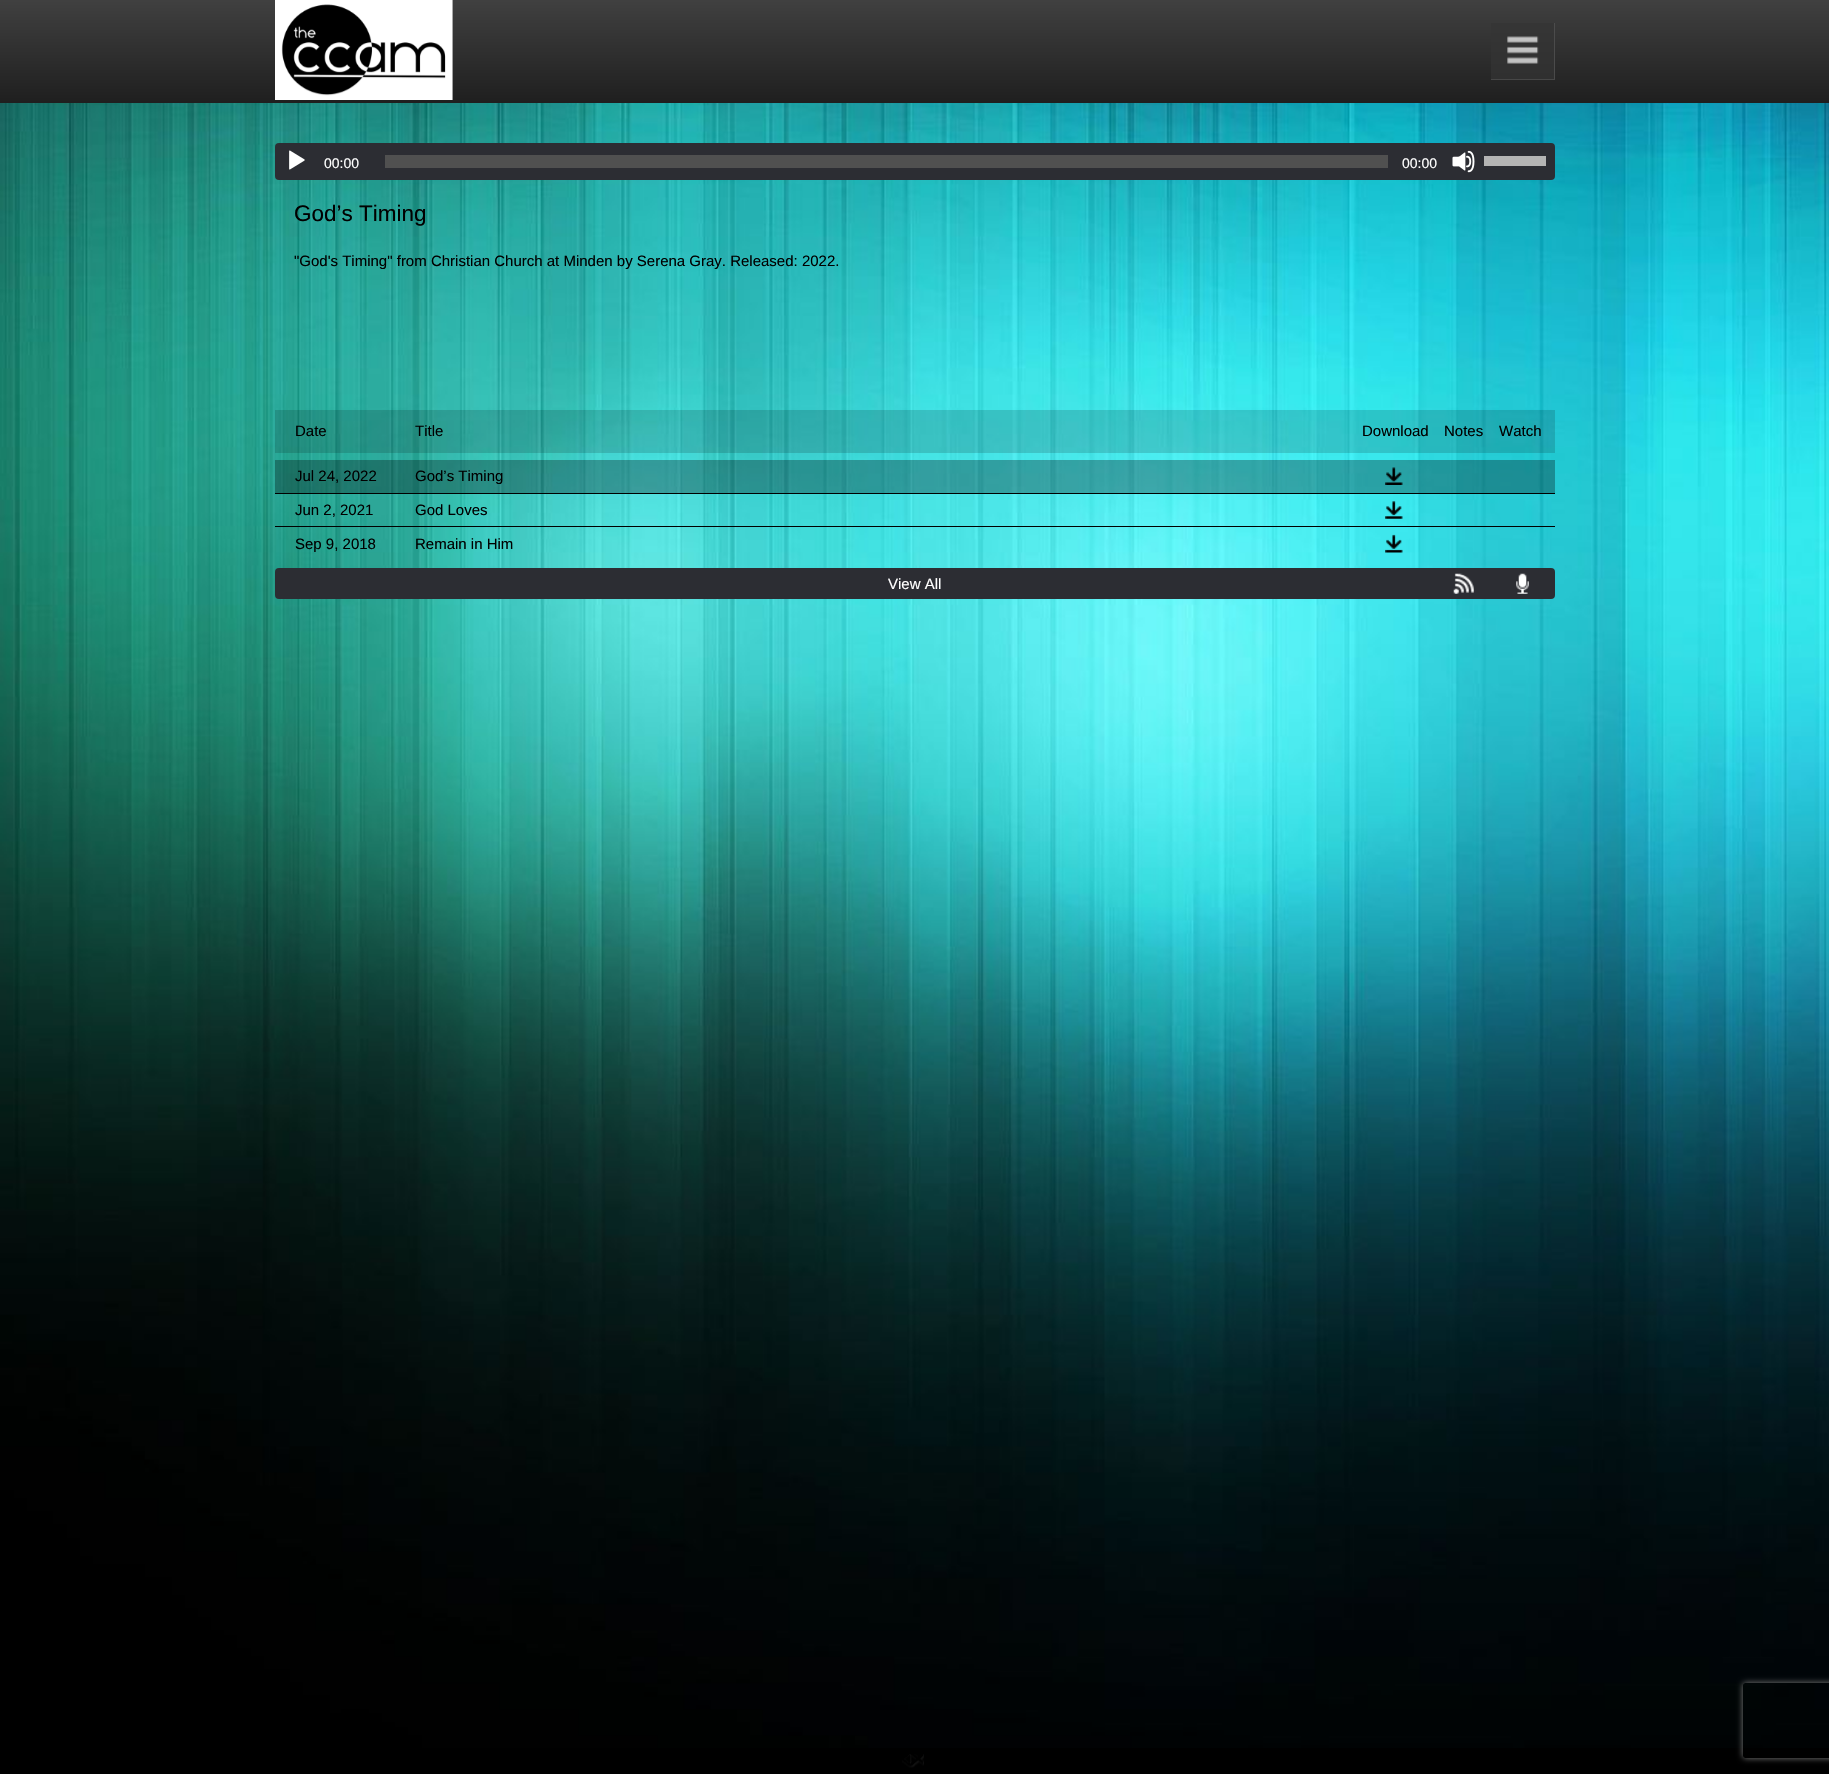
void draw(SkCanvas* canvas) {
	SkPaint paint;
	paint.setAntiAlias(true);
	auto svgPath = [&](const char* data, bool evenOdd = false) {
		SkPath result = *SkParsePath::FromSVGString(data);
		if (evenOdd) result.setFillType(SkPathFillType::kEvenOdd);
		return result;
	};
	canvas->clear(0xff000000);
	canvas->drawImageRect(SkImages::DeferredFromEncodedData(SkData::MakeFromFileName("img1.png")), SkRect::MakeXYWH(0, 103, 1829, 1645), SkSamplingOptions());
	{
		const SkColor colors[] = {0xff404040, 0xff1f1f1f};
		const float stops[] = {0, 1};
		const SkPoint ends[] = {{915, 0}, {915, 103}};
		paint.setShader(SkGradientShader::MakeLinear(ends, colors, stops, 2, SkTileMode::kClamp));
		paint.setAlpha(255);
	}
	canvas->drawRect(SkRect::MakeXYWH(0, 0, 1829, 103), paint);
	canvas->drawImageRect(SkImages::DeferredFromEncodedData(SkData::MakeFromFileName("img2.png")), SkRect::MakeXYWH(275, 0, 178, 100), SkSamplingOptions());
	paint.setShader(nullptr);
	paint.setColor(0xb3333333);
	canvas->drawRect(SkRect::MakeXYWH(1491, 23, 64, 56), paint);
	canvas->drawImageRect(SkImages::DeferredFromEncodedData(SkData::MakeFromFileName("img3.png")), SkRect::MakeXYWH(1507, 36, 32, 28), SkSamplingOptions());
	paint.setColor(0xb3555555);
	canvas->drawRect(SkRect::MakeXYWH(1554, 23, 1, 57), paint);
	paint.setColor(0xff474747);
	canvas->drawRect(SkRect::MakeXYWH(1491, 79, 64, 1), paint);
	paint.setColor(0xff2c2d33);
	canvas->drawRoundRect(SkRect::MakeXYWH(275, 143, 1280, 37), 4, 4, paint);
	canvas->drawImageRect(SkImages::DeferredFromEncodedData(SkData::MakeFromFileName("img4.png")), SkRect::MakeXYWH(289, 150, 16, 20), SkSamplingOptions());
	SkFont f1(fontMgr->matchFamilyStyle("Liberation Sans", SkFontStyle::Normal()), 14);
	f1.setSubpixel(true);
	paint.setColor(0xffffffff);
	canvas->drawString("00:00", 324, 168, f1, paint);
	paint.setColor(0xff505050);
	canvas->drawRect(SkRect::MakeXYWH(385, 155, 1003, 13), paint);
	paint.setColor(0xffffffff);
	canvas->drawString("00:00", 1402, 168, f1, paint);
	canvas->drawImageRect(SkImages::DeferredFromEncodedData(SkData::MakeFromFileName("img5.png")), SkRect::MakeXYWH(1452, 150, 23, 23), SkSamplingOptions());
	paint.setColor(0xffb4b4b4);
	canvas->drawRect(SkRect::MakeXYWH(1484, 156, 62, 10), paint);
	SkFont f2(fontMgr->matchFamilyStyle("Liberation Sans", SkFontStyle::Normal()), 22.5);
	f2.setSubpixel(true);
	paint.setColor(0xff000000);
	canvas->drawString("God’s Timing", 294, 221, f2, paint);
	SkFont f3(fontMgr->matchFamilyStyle("Liberation Sans", SkFontStyle::Normal()), 15);
	f3.setSubpixel(true);
	canvas->drawString("\"God's Timing\" from Christian Church at Minden by Serena Gray. Released: 2022.", 294, 266, f3, paint);
	paint.setColor(0x26000000);
	canvas->drawRect(SkRect::MakeXYWH(275, 410, 1280, 43), paint);
	paint.setColor(0xff000000);
	canvas->drawString("Date", 295, 436, f3, paint);
	canvas->drawString("Title", 415, 436, f3, paint);
	canvas->drawString("Download", 1362, 436, f3, paint);
	canvas->drawString("Notes", 1444, 436, f3, paint);
	canvas->drawString("Watch", 1499, 436, f3, paint);
	paint.setColor(0x4d000000);
	canvas->drawRect(SkRect::MakeXYWH(275, 460, 1280, 33), paint);
	paint.setColor(0xff000000);
	canvas->drawString("Jul 24, 2022", 295, 481, f3, paint);
	canvas->drawString("God’s Timing", 415, 481, f3, paint);
	canvas->drawImageRect(SkImages::DeferredFromEncodedData(SkData::MakeFromFileName("img6.png")), SkRect::MakeXYWH(1385, 467, 18, 18), SkSamplingOptions());
	canvas->drawRect(SkRect::MakeXYWH(275, 493, 1280, 1), paint);
	canvas->drawString("Jun 2, 2021", 295, 515, f3, paint);
	canvas->drawString("God Loves", 415, 515, f3, paint);
	canvas->drawImageRect(SkImages::DeferredFromEncodedData(SkData::MakeFromFileName("img7.png")), SkRect::MakeXYWH(1385, 501, 18, 18), SkSamplingOptions());
	canvas->drawRect(SkRect::MakeXYWH(275, 526, 1280, 1), paint);
	canvas->drawString("Sep 9, 2018", 295, 549, f3, paint);
	canvas->drawString("Remain in Him", 415, 549, f3, paint);
	canvas->drawImageRect(SkImages::DeferredFromEncodedData(SkData::MakeFromFileName("img8.png")), SkRect::MakeXYWH(1385, 534, 18, 19), SkSamplingOptions());
	paint.setColor(0xff2c2d33);
	canvas->drawRoundRect(SkRect::MakeXYWH(275, 568, 1280, 31), 4, 4, paint);
	paint.setColor(0xffffffff);
	canvas->drawString("View All", 888, 589, f3, paint);
	canvas->drawImageRect(SkImages::DeferredFromEncodedData(SkData::MakeFromFileName("img9.png")), SkRect::MakeXYWH(1453, 573, 21, 21), SkSamplingOptions());
	canvas->drawImageRect(SkImages::DeferredFromEncodedData(SkData::MakeFromFileName("img10.png")), SkRect::MakeXYWH(1516, 573, 13, 21), SkSamplingOptions());
	canvas->drawImageRect(SkImages::DeferredFromEncodedData(SkData::MakeFromFileName("img11.png")), SkRect::MakeXYWH(902, 1754, 22, 14), SkSamplingOptions());
	canvas->save();
	canvas->clipPath(svgPath("M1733 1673H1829V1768H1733ZM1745.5 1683H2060.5C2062 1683 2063 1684 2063 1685.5V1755.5C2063 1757 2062 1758 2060.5 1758H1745.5C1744 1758 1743 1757 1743 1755.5V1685.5C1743 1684 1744 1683 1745.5 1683Z", true), true);
	paint.setColor(0xff808080);
	paint.setMaskFilter(SkMaskFilter::MakeBlur(kNormal_SkBlurStyle, 3));
	canvas->drawRoundRect(SkRect::MakeXYWH(1743, 1683, 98, 75), 2.5, 2.5, paint);
	paint.setMaskFilter(nullptr);
	canvas->restore();
}
